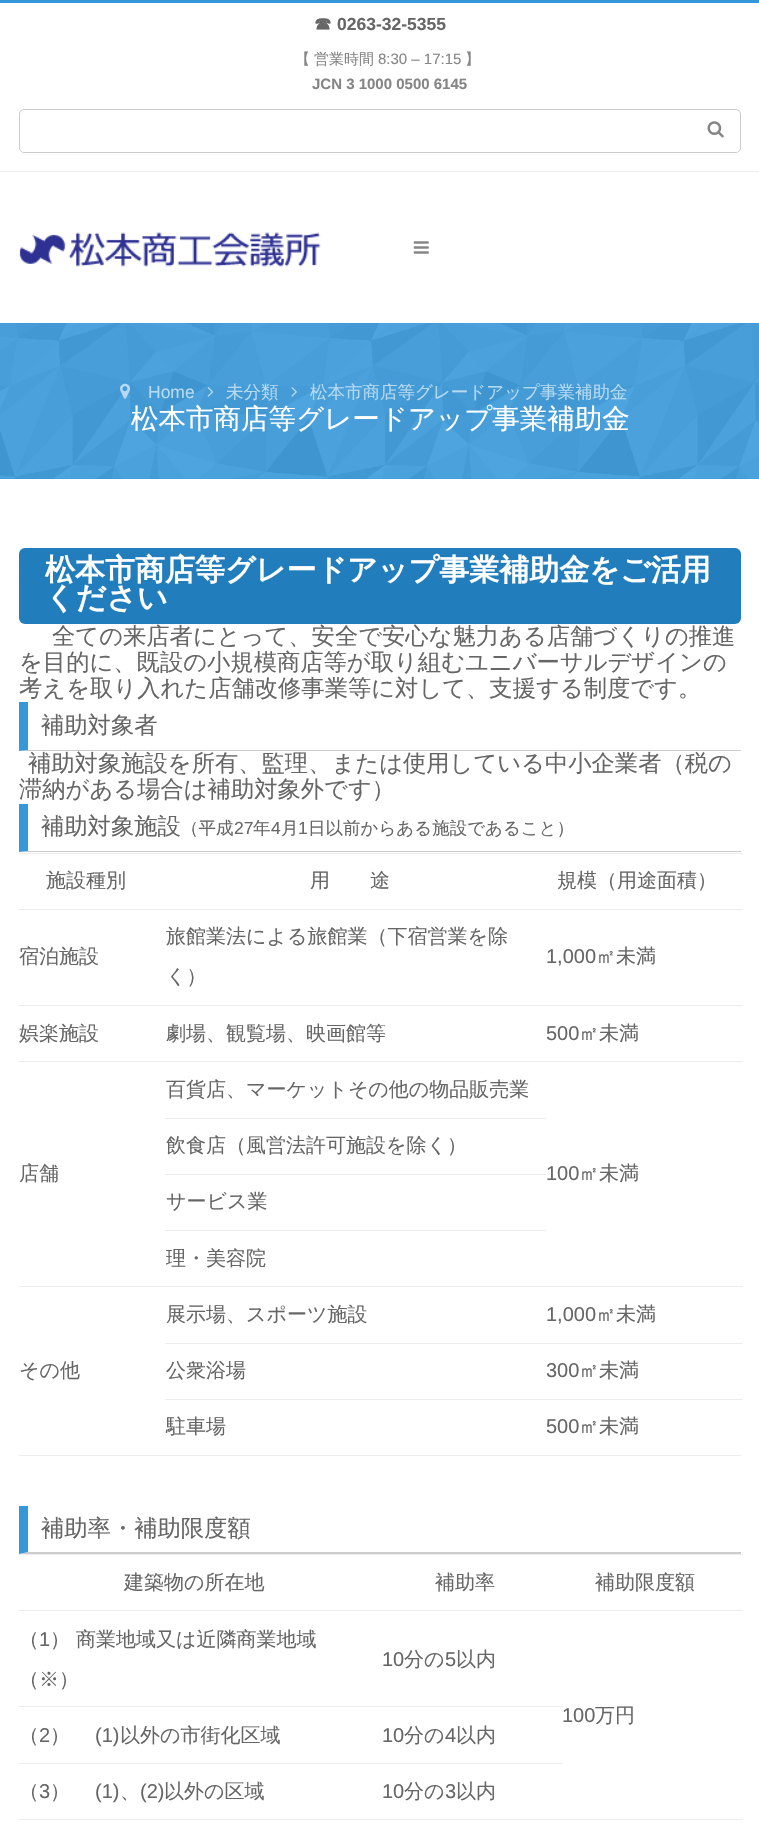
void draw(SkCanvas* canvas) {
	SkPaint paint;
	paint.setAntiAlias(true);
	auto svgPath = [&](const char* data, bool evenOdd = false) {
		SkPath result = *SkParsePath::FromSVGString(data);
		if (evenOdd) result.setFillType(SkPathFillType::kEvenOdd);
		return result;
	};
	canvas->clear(0xffffffff);
	paint.setColor(0xff3498db);
	canvas->drawRect(SkRect::MakeXYWH(0, 0, 759, 3), paint);
	paint.setColor(0xffebebeb);
	canvas->drawRect(SkRect::MakeXYWH(0, 171, 759, 1), paint);
	SkFont f1(fontMgr->matchFamilyStyle("WenQuanYi Zen Hei", SkFontStyle::Bold()), 17.5);
	f1.setSubpixel(true);
	paint.setColor(0xff666666);
	canvas->drawString("☎", 314, 30, f1, paint);
	SkFont f2(fontMgr->matchFamilyStyle("Liberation Sans", SkFontStyle::Bold()), 17.5);
	f2.setSubpixel(true);
	canvas->drawString("0263-32-5355", 337, 30, f2, paint);
	SkFont f3(fontMgr->matchFamilyStyle("WenQuanYi Zen Hei", SkFontStyle(500, SkFontStyle::kNormal_Width, SkFontStyle::kUpright_Slant)), 15);
	f3.setSubpixel(true);
	paint.setColor(0xff858585);
	canvas->drawString("【", 295, 64, f3, paint);
	canvas->drawString("営業時間", 314, 64, f3, paint);
	SkFont f4(fontMgr->matchFamilyStyle("Liberation Sans", SkFontStyle::Normal()), 15);
	f4.setSubpixel(true);
	canvas->drawString("8:30 – 17:15", 378, 64, f4, paint);
	canvas->drawString("】", 465, 64, f3, paint);
	SkFont f5(fontMgr->matchFamilyStyle("Liberation Sans", SkFontStyle::Bold()), 15);
	f5.setSubpixel(true);
	canvas->drawString("JCN 3 1000 0500 6145", 312, 89, f5, paint);
	paint.setStroke(true);
	paint.setStrokeWidth(1);
	paint.setColor(0xffcccccc);
	canvas->drawRoundRect(SkRect::MakeXYWH(19.5, 109.5, 721, 43), 4.5, 4.5, paint);
	canvas->drawImageRect(SkImages::DeferredFromEncodedData(SkData::MakeFromFileName("img1.png")), SkRect::MakeXYWH(707, 121, 17, 17), SkSamplingOptions());
	canvas->drawImageRect(SkImages::DeferredFromEncodedData(SkData::MakeFromFileName("img2.png")), SkRect::MakeXYWH(19, 232, 302, 35), SkSamplingOptions());
	canvas->drawImageRect(SkImages::DeferredFromEncodedData(SkData::MakeFromFileName("img3.png")), SkRect::MakeXYWH(413, 241, 16, 13), SkSamplingOptions());
	paint.setStroke(false);
	paint.setColor(0xff3498db);
	canvas->drawRect(SkRect::MakeXYWH(0, 323, 759, 156), paint);
	canvas->drawImageRect(SkImages::DeferredFromEncodedData(SkData::MakeFromFileName("img4.png")), SkRect::MakeXYWH(0, 323, 759, 156), SkSamplingOptions());
	canvas->drawImageRect(SkImages::DeferredFromEncodedData(SkData::MakeFromFileName("img5.png")), SkRect::MakeXYWH(120, 383, 10, 16), SkSamplingOptions());
	SkFont f6(fontMgr->matchFamilyStyle("Liberation Sans", SkFontStyle::Normal()), 17.5);
	f6.setSubpixel(true);
	paint.setColor(0xffb6daf2);
	canvas->drawString("Home", 148, 398, f6, paint);
	canvas->drawImageRect(SkImages::DeferredFromEncodedData(SkData::MakeFromFileName("img6.png")), SkRect::MakeXYWH(207, 387, 7, 10), SkSamplingOptions());
	SkFont f7(fontMgr->matchFamilyStyle("WenQuanYi Zen Hei", SkFontStyle(500, SkFontStyle::kNormal_Width, SkFontStyle::kUpright_Slant)), 17.5);
	f7.setSubpixel(true);
	canvas->drawString("未分類", 226, 398, f7, paint);
	canvas->drawImageRect(SkImages::DeferredFromEncodedData(SkData::MakeFromFileName("img7.png")), SkRect::MakeXYWH(291, 387, 6, 10), SkSamplingOptions());
	canvas->drawString("松本市商店等グレードアップ事業補助金", 310, 398, f7, paint);
	SkFont f8(fontMgr->matchFamilyStyle("WenQuanYi Zen Hei", SkFontStyle(500, SkFontStyle::kNormal_Width, SkFontStyle::kUpright_Slant)), 27.5);
	f8.setSubpixel(true);
	paint.setColor(0xffffffff);
	canvas->drawString("松本市商店等グレードアップ事業補助金", 131, 428, f8, paint);
	paint.setColor(0xff217dbb);
	canvas->drawRoundRect(SkRect::MakeXYWH(19, 548, 722, 76), 6, 6, paint);
	SkFont f9(fontMgr->matchFamilyStyle("WenQuanYi Zen Hei", SkFontStyle::Bold()), 30);
	f9.setSubpixel(true);
	paint.setColor(0xffffffff);
	canvas->drawString("松本市商店等グレードアップ事業補助金をご活用", 45, 580, f9, paint);
	canvas->drawString("ください", 45, 608, f9, paint);
	SkFont f10(fontMgr->matchFamilyStyle("WenQuanYi Zen Hei", SkFontStyle(500, SkFontStyle::kNormal_Width, SkFontStyle::kUpright_Slant)), 23.3);
	f10.setSubpixel(true);
	paint.setColor(0xff666666);
	canvas->drawString("全ての来店者にとって、安全で安心な魅力ある店舗づくりの推進", 52, 644, f10, paint);
	canvas->drawString("を目的に、既設の小規模商店等が取り組むユニバーサルデザインの", 19, 670, f10, paint);
	canvas->drawString("考えを取り入れた店舗改修事業等に対して、支援する制度です。", 19, 696, f10, paint);
	paint.setColor(0xffcccccc);
	canvas->drawPath(svgPath("M741 751H19L28 750H741Z"), paint);
	paint.setColor(0xff3498db);
	canvas->drawPath(svgPath("M19 751V702H28V750Z"), paint);
	paint.setColor(0xff666666);
	canvas->drawString("補助対象者", 41, 733, f10, paint);
	canvas->drawString("補助対象施設を所有、監理、または使用している中小企業者（税の", 28, 771, f10, paint);
	canvas->drawString("滞納がある場合は補助対象外です）", 19, 797, f10, paint);
	paint.setColor(0xffcccccc);
	canvas->drawPath(svgPath("M741 852H19L28 851H741Z"), paint);
	paint.setColor(0xff3498db);
	canvas->drawPath(svgPath("M19 852V804H28V851Z"), paint);
	paint.setColor(0xff666666);
	canvas->drawString("補助対象施設", 41, 834, f10, paint);
	canvas->drawString("（平成", 181, 834, f7, paint);
	canvas->drawString("27", 234, 834, f6, paint);
	canvas->drawString("年", 253, 834, f7, paint);
	canvas->drawString("4", 271, 834, f6, paint);
	canvas->drawString("月", 281, 834, f7, paint);
	canvas->drawString("1", 298, 834, f6, paint);
	canvas->drawString("日以前からある施設であること）", 308, 834, f7, paint);
	paint.setColor(0xffededed);
	canvas->drawRect(SkRect::MakeXYWH(19, 1455, 722, 1), paint);
	SkFont f11(fontMgr->matchFamilyStyle("WenQuanYi Zen Hei", SkFontStyle(500, SkFontStyle::kNormal_Width, SkFontStyle::kUpright_Slant)), 20);
	f11.setSubpixel(true);
	paint.setColor(0xff666666);
	canvas->drawString("施設種別", 46, 887, f11, paint);
	canvas->drawString("用　　途", 310, 887, f11, paint);
	paint.setColor(0xffededed);
	canvas->drawRect(SkRect::MakeXYWH(19, 853, 724, 1), paint);
	paint.setColor(0xff666666);
	canvas->drawString("規模（用途面積）", 557, 887, f11, paint);
	canvas->drawString("宿泊施設", 19, 963, f11, paint);
	canvas->drawString("旅館業法による旅館業（下宿営業を除", 166, 943, f11, paint);
	canvas->drawString("く）", 166, 983, f11, paint);
	paint.setColor(0xffededed);
	canvas->drawRect(SkRect::MakeXYWH(19, 909, 724, 1), paint);
	SkFont f12(fontMgr->matchFamilyStyle("Liberation Sans", SkFontStyle::Normal()), 20);
	f12.setSubpixel(true);
	paint.setColor(0xff666666);
	canvas->drawString("1,000", 546, 963, f12, paint);
	canvas->drawString("㎡未満", 596, 963, f11, paint);
	canvas->drawString("娯楽施設", 19, 1040, f11, paint);
	canvas->drawString("劇場、観覧場、映画館等", 166, 1040, f11, paint);
	paint.setColor(0xffededed);
	canvas->drawRect(SkRect::MakeXYWH(19, 1005, 724, 1), paint);
	paint.setColor(0xff666666);
	canvas->drawString("500", 546, 1040, f12, paint);
	canvas->drawString("㎡未満", 579, 1040, f11, paint);
	canvas->drawString("百貨店、マーケットその他の物品販売業", 166, 1096, f11, paint);
	canvas->drawString("店舗", 19, 1180, f11, paint);
	paint.setColor(0xffededed);
	canvas->drawRect(SkRect::MakeXYWH(19, 1061, 724, 1), paint);
	paint.setColor(0xff666666);
	canvas->drawString("100", 546, 1180, f12, paint);
	canvas->drawString("㎡未満", 579, 1180, f11, paint);
	paint.setColor(0xffededed);
	canvas->drawRect(SkRect::MakeXYWH(165, 1118, 381, 1), paint);
	paint.setColor(0xff666666);
	canvas->drawString("飲食店（風営法許可施設を除く）", 166, 1152, f11, paint);
	paint.setColor(0xffededed);
	canvas->drawRect(SkRect::MakeXYWH(165, 1174, 381, 1), paint);
	paint.setColor(0xff666666);
	canvas->drawString("サービス業", 166, 1208, f11, paint);
	paint.setColor(0xffededed);
	canvas->drawRect(SkRect::MakeXYWH(165, 1230, 381, 1), paint);
	paint.setColor(0xff666666);
	canvas->drawString("理・美容院", 166, 1265, f11, paint);
	canvas->drawString("展示場、スポーツ施設", 166, 1321, f11, paint);
	paint.setColor(0xffededed);
	canvas->drawRect(SkRect::MakeXYWH(19, 1286, 724, 1), paint);
	paint.setColor(0xff666666);
	canvas->drawString("1,000", 546, 1321, f12, paint);
	canvas->drawString("㎡未満", 596, 1321, f11, paint);
	canvas->drawString("その他", 19, 1377, f11, paint);
	canvas->drawString("公衆浴場", 166, 1377, f11, paint);
	paint.setColor(0xffededed);
	canvas->drawRect(SkRect::MakeXYWH(165, 1343, 578, 1), paint);
	paint.setColor(0xff666666);
	canvas->drawString("300", 546, 1377, f12, paint);
	canvas->drawString("㎡未満", 579, 1377, f11, paint);
	canvas->drawString("駐車場", 166, 1433, f11, paint);
	paint.setColor(0xffededed);
	canvas->drawRect(SkRect::MakeXYWH(165, 1399, 578, 1), paint);
	paint.setColor(0xff666666);
	canvas->drawString("500", 546, 1433, f12, paint);
	canvas->drawString("㎡未満", 579, 1433, f11, paint);
	paint.setColor(0xffcccccc);
	canvas->drawPath(svgPath("M741 1554H19L28 1552H741Z"), paint);
	paint.setColor(0xff3498db);
	canvas->drawPath(svgPath("M19 1554V1506H28V1552Z"), paint);
	paint.setColor(0xff666666);
	canvas->drawString("補助率・補助限度額", 41, 1536, f10, paint);
	canvas->drawString("建築物の所在地", 124, 1589, f11, paint);
	canvas->drawString("補助率", 435, 1589, f11, paint);
	paint.setColor(0xffededed);
	canvas->drawRect(SkRect::MakeXYWH(19, 1554, 724, 1), paint);
	paint.setColor(0xff666666);
	canvas->drawString("補助限度額", 595, 1589, f11, paint);
	canvas->drawString("（", 19, 1646, f11, paint);
	canvas->drawString("1", 39, 1646, f12, paint);
	canvas->drawString("） 商業地域又は近隣商業地域", 50, 1646, f11, paint);
	canvas->drawString("（※）", 19, 1686, f11, paint);
	canvas->drawString("10", 382, 1666, f12, paint);
	canvas->drawString("分の", 404, 1666, f11, paint);
	canvas->drawString("5", 445, 1666, f12, paint);
	canvas->drawString("以内", 456, 1666, f11, paint);
	paint.setColor(0xffededed);
	canvas->drawRect(SkRect::MakeXYWH(19, 1610, 724, 1), paint);
	paint.setColor(0xff666666);
	canvas->drawString("100", 562, 1722, f12, paint);
	canvas->drawString("万円", 595, 1722, f11, paint);
	canvas->drawString("（", 19, 1742, f11, paint);
	canvas->drawString("2", 39, 1742, f12, paint);
	canvas->drawString("）", 50, 1742, f11, paint);
	canvas->drawString("(1)", 95, 1742, f12, paint);
	canvas->drawString("以外の市街化区域", 120, 1742, f11, paint);
	paint.setColor(0xffededed);
	canvas->drawRect(SkRect::MakeXYWH(19, 1706, 544, 1), paint);
	paint.setColor(0xff666666);
	canvas->drawString("10", 382, 1742, f12, paint);
	canvas->drawString("分の", 404, 1742, f11, paint);
	canvas->drawString("4", 445, 1742, f12, paint);
	canvas->drawString("以内", 456, 1742, f11, paint);
	canvas->drawString("（", 19, 1798, f11, paint);
	canvas->drawString("3", 39, 1798, f12, paint);
	canvas->drawString("）", 50, 1798, f11, paint);
	canvas->drawString("(1)", 95, 1798, f12, paint);
	canvas->drawString("、", 120, 1798, f11, paint);
	canvas->drawString("(2)", 140, 1798, f12, paint);
	canvas->drawString("以外の区域", 164, 1798, f11, paint);
	paint.setColor(0xffededed);
	canvas->drawRect(SkRect::MakeXYWH(19, 1763, 544, 1), paint);
	paint.setColor(0xff666666);
	canvas->drawString("10", 382, 1798, f12, paint);
	canvas->drawString("分の", 404, 1798, f11, paint);
	canvas->drawString("3", 445, 1798, f12, paint);
	canvas->drawString("以内", 456, 1798, f11, paint);
	paint.setColor(0xffededed);
	canvas->drawRect(SkRect::MakeXYWH(19, 1819, 724, 1), paint);
}
